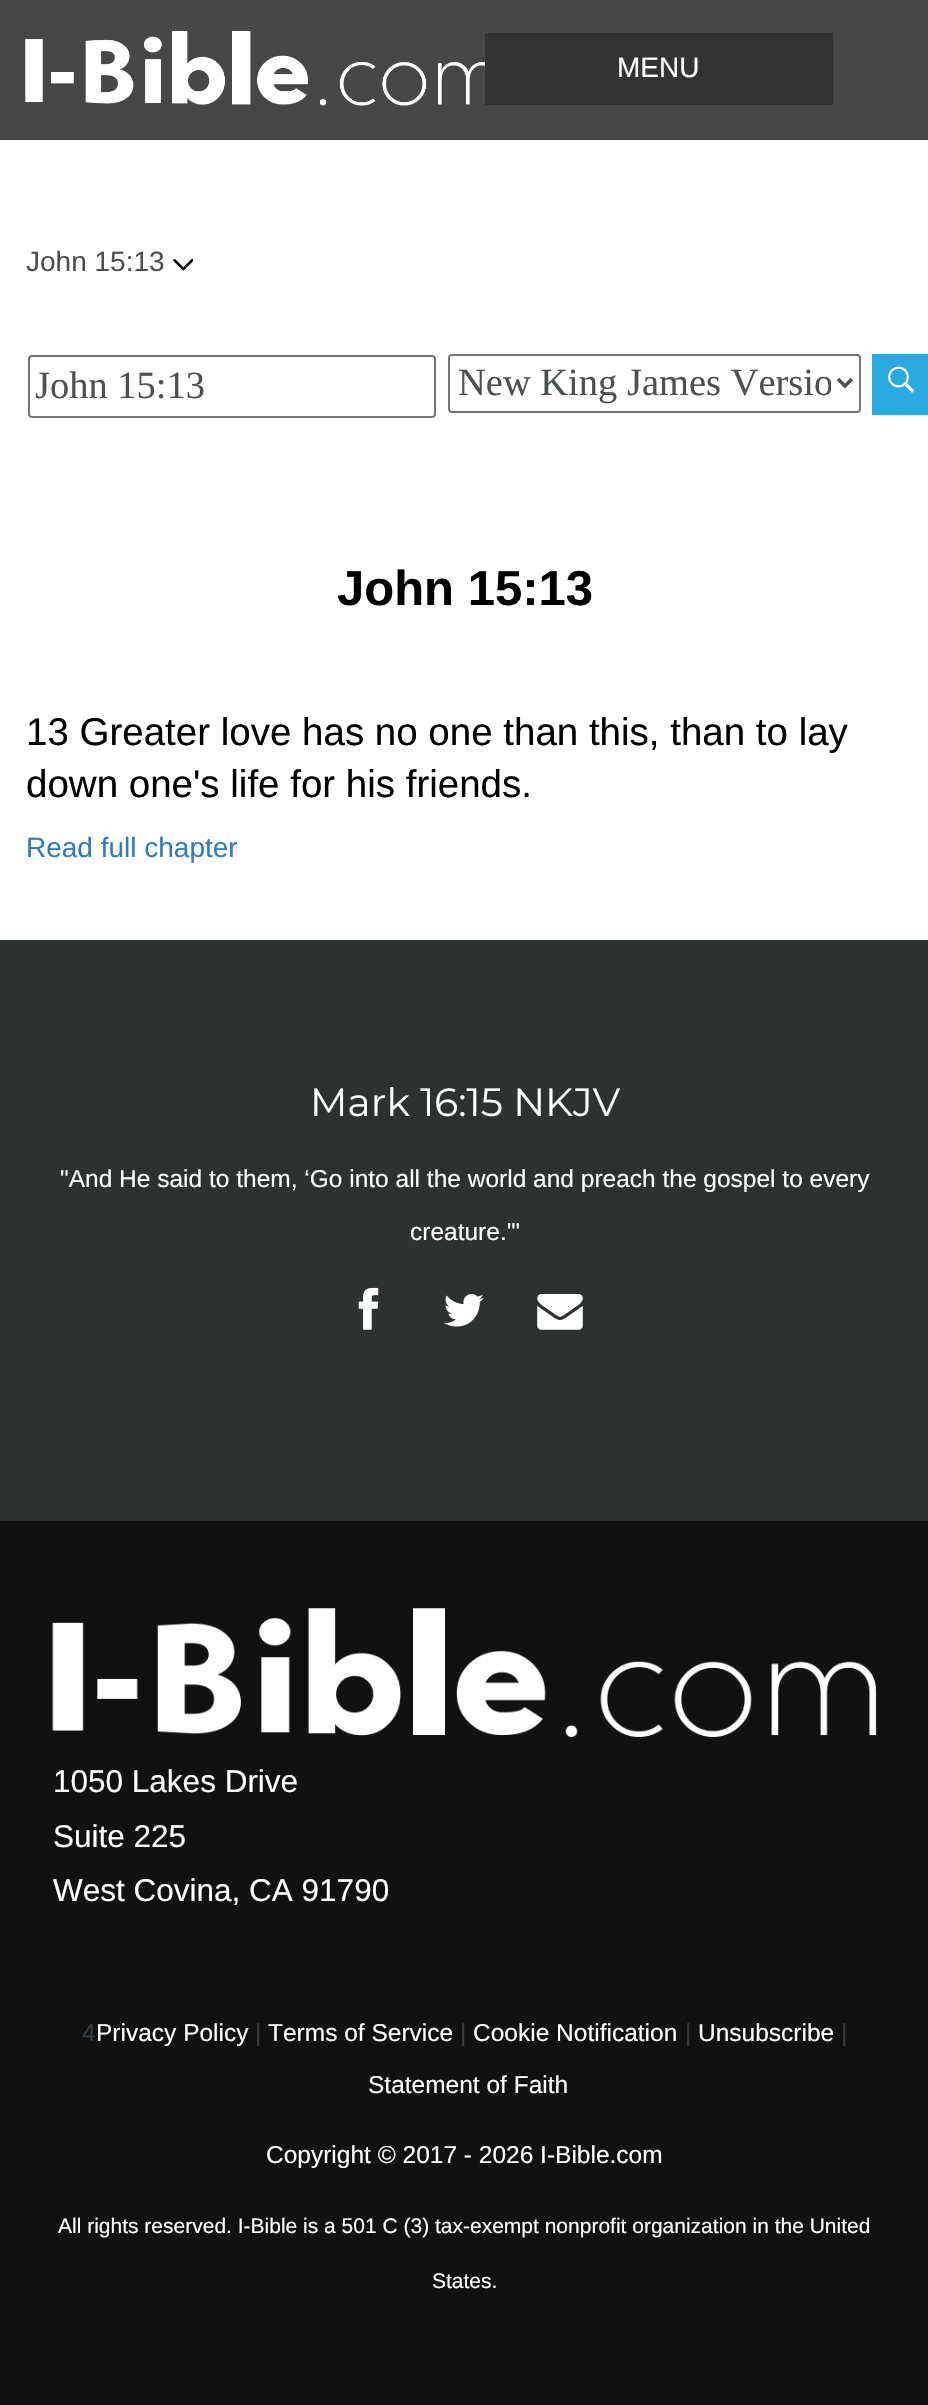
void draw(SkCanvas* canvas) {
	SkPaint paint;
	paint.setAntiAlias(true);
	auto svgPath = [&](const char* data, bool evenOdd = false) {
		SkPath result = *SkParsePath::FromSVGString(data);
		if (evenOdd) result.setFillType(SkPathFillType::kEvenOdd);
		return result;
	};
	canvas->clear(0xffffffff);
	paint.setColor(0xff474747);
	canvas->drawRect(SkRect::MakeXYWH(0, 0, 928, 140), paint);
	canvas->drawImageRect(SkImages::DeferredFromEncodedData(SkData::MakeFromFileName("img1.png")), SkRect::MakeXYWH(25, 31, 460, 75), SkSamplingOptions());
	paint.setColor(0xff333333);
	canvas->drawRect(SkRect::MakeXYWH(485, 33, 348, 72), paint);
	SkFont f1(fontMgr->matchFamilyStyle("Liberation Sans", SkFontStyle::Normal()), 28);
	f1.setSubpixel(true);
	paint.setColor(0xffffffff);
	canvas->drawString("MENU", 617, 77, f1, paint);
	paint.setColor(0xff4c5053);
	canvas->drawString("John 15:13", 26, 271, f1, paint);
	canvas->drawImageRect(SkImages::DeferredFromEncodedData(SkData::MakeFromFileName("img2.png")), SkRect::MakeXYWH(173, 259, 20, 12), SkSamplingOptions());
	paint.setStroke(true);
	paint.setStrokeWidth(2);
	paint.setColor(0xff767676);
	canvas->drawRoundRect(SkRect::MakeXYWH(29, 356, 406, 61), 3, 3, paint);
	SkFont f2(fontMgr->matchFamilyStyle("Liberation Serif", SkFontStyle::Normal()), 38.5);
	f2.setSubpixel(true);
	paint.setStroke(false);
	paint.setColor(0xff4c5053);
	canvas->drawString("John 15:13", 35, 398, f2, paint);
	paint.setStroke(true);
	paint.setColor(0xff767676);
	canvas->drawRoundRect(SkRect::MakeXYWH(449, 355, 411, 57), 3, 3, paint);
	paint.setStrokeWidth(3.5);
	paint.setColor(0xff4c5053);
	canvas->drawPath(svgPath("M838 379L845 386L852 379"), paint);
	canvas->save();
	canvas->clipRect(SkRect::MakeXYWH(457, 359, 374, 47));
	paint.setStroke(false);
	canvas->drawString("New King James Versio", 458, 395, f2, paint);
	canvas->restore();
	paint.setColor(0xff2baadf);
	canvas->drawRect(SkRect::MakeXYWH(872, 354, 56, 61), paint);
	canvas->drawImageRect(SkImages::DeferredFromEncodedData(SkData::MakeFromFileName("img3.png")), SkRect::MakeXYWH(888, 366, 27, 27), SkSamplingOptions());
	SkFont f3(fontMgr->matchFamilyStyle("Liberation Sans", SkFontStyle::Bold()), 49);
	f3.setSubpixel(true);
	paint.setColor(0xff000000);
	canvas->drawString("John 15:13", 337, 605, f3, paint);
	SkFont f4(fontMgr->matchFamilyStyle("Liberation Sans", SkFontStyle::Normal()), 38.5);
	f4.setSubpixel(true);
	canvas->drawString("13 Greater love has no one than this, than to lay", 26, 745, f4, paint);
	canvas->drawString("down one's life for his friends.", 26, 797, f4, paint);
	paint.setColor(0xff337ab7);
	canvas->drawString("Read full chapter", 26, 857, f1, paint);
	paint.setColor(0xff2d312f);
	canvas->drawRect(SkRect::MakeXYWH(0, 940, 928, 581), paint);
	SkFont f5(fontMgr->matchFamilyStyle("Montserrat", SkFontStyle::Normal()), 39.25);
	f5.setSubpixel(true);
	paint.setColor(0xffffffff);
	canvas->drawString("Mark 16:15 NKJV", 310, 1116, f5, paint);
	SkFont f6(fontMgr->matchFamilyStyle("Liberation Sans", SkFontStyle::Normal()), 24.5);
	f6.setSubpixel(true);
	canvas->drawString("\"And He said to them, ‘Go into all the world and preach the gospel to every", 60, 1187, f6, paint);
	canvas->drawString("creature.'\"", 410, 1240, f6, paint);
	canvas->drawImageRect(SkImages::DeferredFromEncodedData(SkData::MakeFromFileName("img4.png")), SkRect::MakeXYWH(358, 1287, 21, 43), SkSamplingOptions());
	canvas->drawImageRect(SkImages::DeferredFromEncodedData(SkData::MakeFromFileName("img5.png")), SkRect::MakeXYWH(444, 1294, 40, 33), SkSamplingOptions());
	canvas->drawImageRect(SkImages::DeferredFromEncodedData(SkData::MakeFromFileName("img6.png")), SkRect::MakeXYWH(537, 1294, 46, 36), SkSamplingOptions());
	paint.setColor(0xff111111);
	canvas->drawRect(SkRect::MakeXYWH(0, 1521, 928, 884), paint);
	canvas->drawImageRect(SkImages::DeferredFromEncodedData(SkData::MakeFromFileName("img7.png")), SkRect::MakeXYWH(52, 1608, 825, 130), SkSamplingOptions());
	SkFont f7(fontMgr->matchFamilyStyle("Liberation Sans", SkFontStyle::Normal()), 31.5);
	f7.setSubpixel(true);
	paint.setColor(0xffffffff);
	canvas->drawString("1050 Lakes Drive", 53, 1792, f7, paint);
	canvas->drawString("Suite 225", 53, 1847, f7, paint);
	canvas->drawString("West Covina, CA 91790", 53, 1901, f7, paint);
	paint.setColor(0xff363c3f);
	canvas->drawString("4", 82, 2041, f6, paint);
	paint.setColor(0xffffffff);
	canvas->drawString("Privacy Policy", 96, 2041, f6, paint);
	paint.setColor(0xff363c3f);
	canvas->drawString("|", 255, 2041, f6, paint);
	paint.setColor(0xffffffff);
	canvas->drawString("Terms of Service", 268, 2041, f6, paint);
	paint.setColor(0xff363c3f);
	canvas->drawString("|", 460, 2041, f6, paint);
	paint.setColor(0xffffffff);
	canvas->drawString("Cookie Notification", 473, 2041, f6, paint);
	paint.setColor(0xff363c3f);
	canvas->drawString("|", 685, 2041, f6, paint);
	paint.setColor(0xffffffff);
	canvas->drawString("Unsubscribe", 698, 2041, f6, paint);
	paint.setColor(0xff363c3f);
	canvas->drawString("|", 841, 2041, f6, paint);
	paint.setColor(0xffffffff);
	canvas->drawString("Statement of Faith", 368, 2093, f6, paint);
	canvas->drawString("Copyright © 2017 - 2026 I-Bible.com", 266, 2163, f6, paint);
	SkFont f8(fontMgr->matchFamilyStyle("Liberation Sans", SkFontStyle::Normal()), 21);
	f8.setSubpixel(true);
	canvas->drawString("All rights reserved. I-Bible is a 501 C (3) tax-exempt nonprofit organization in the United", 58, 2233, f8, paint);
	canvas->drawString("States.", 432, 2288, f8, paint);
}
